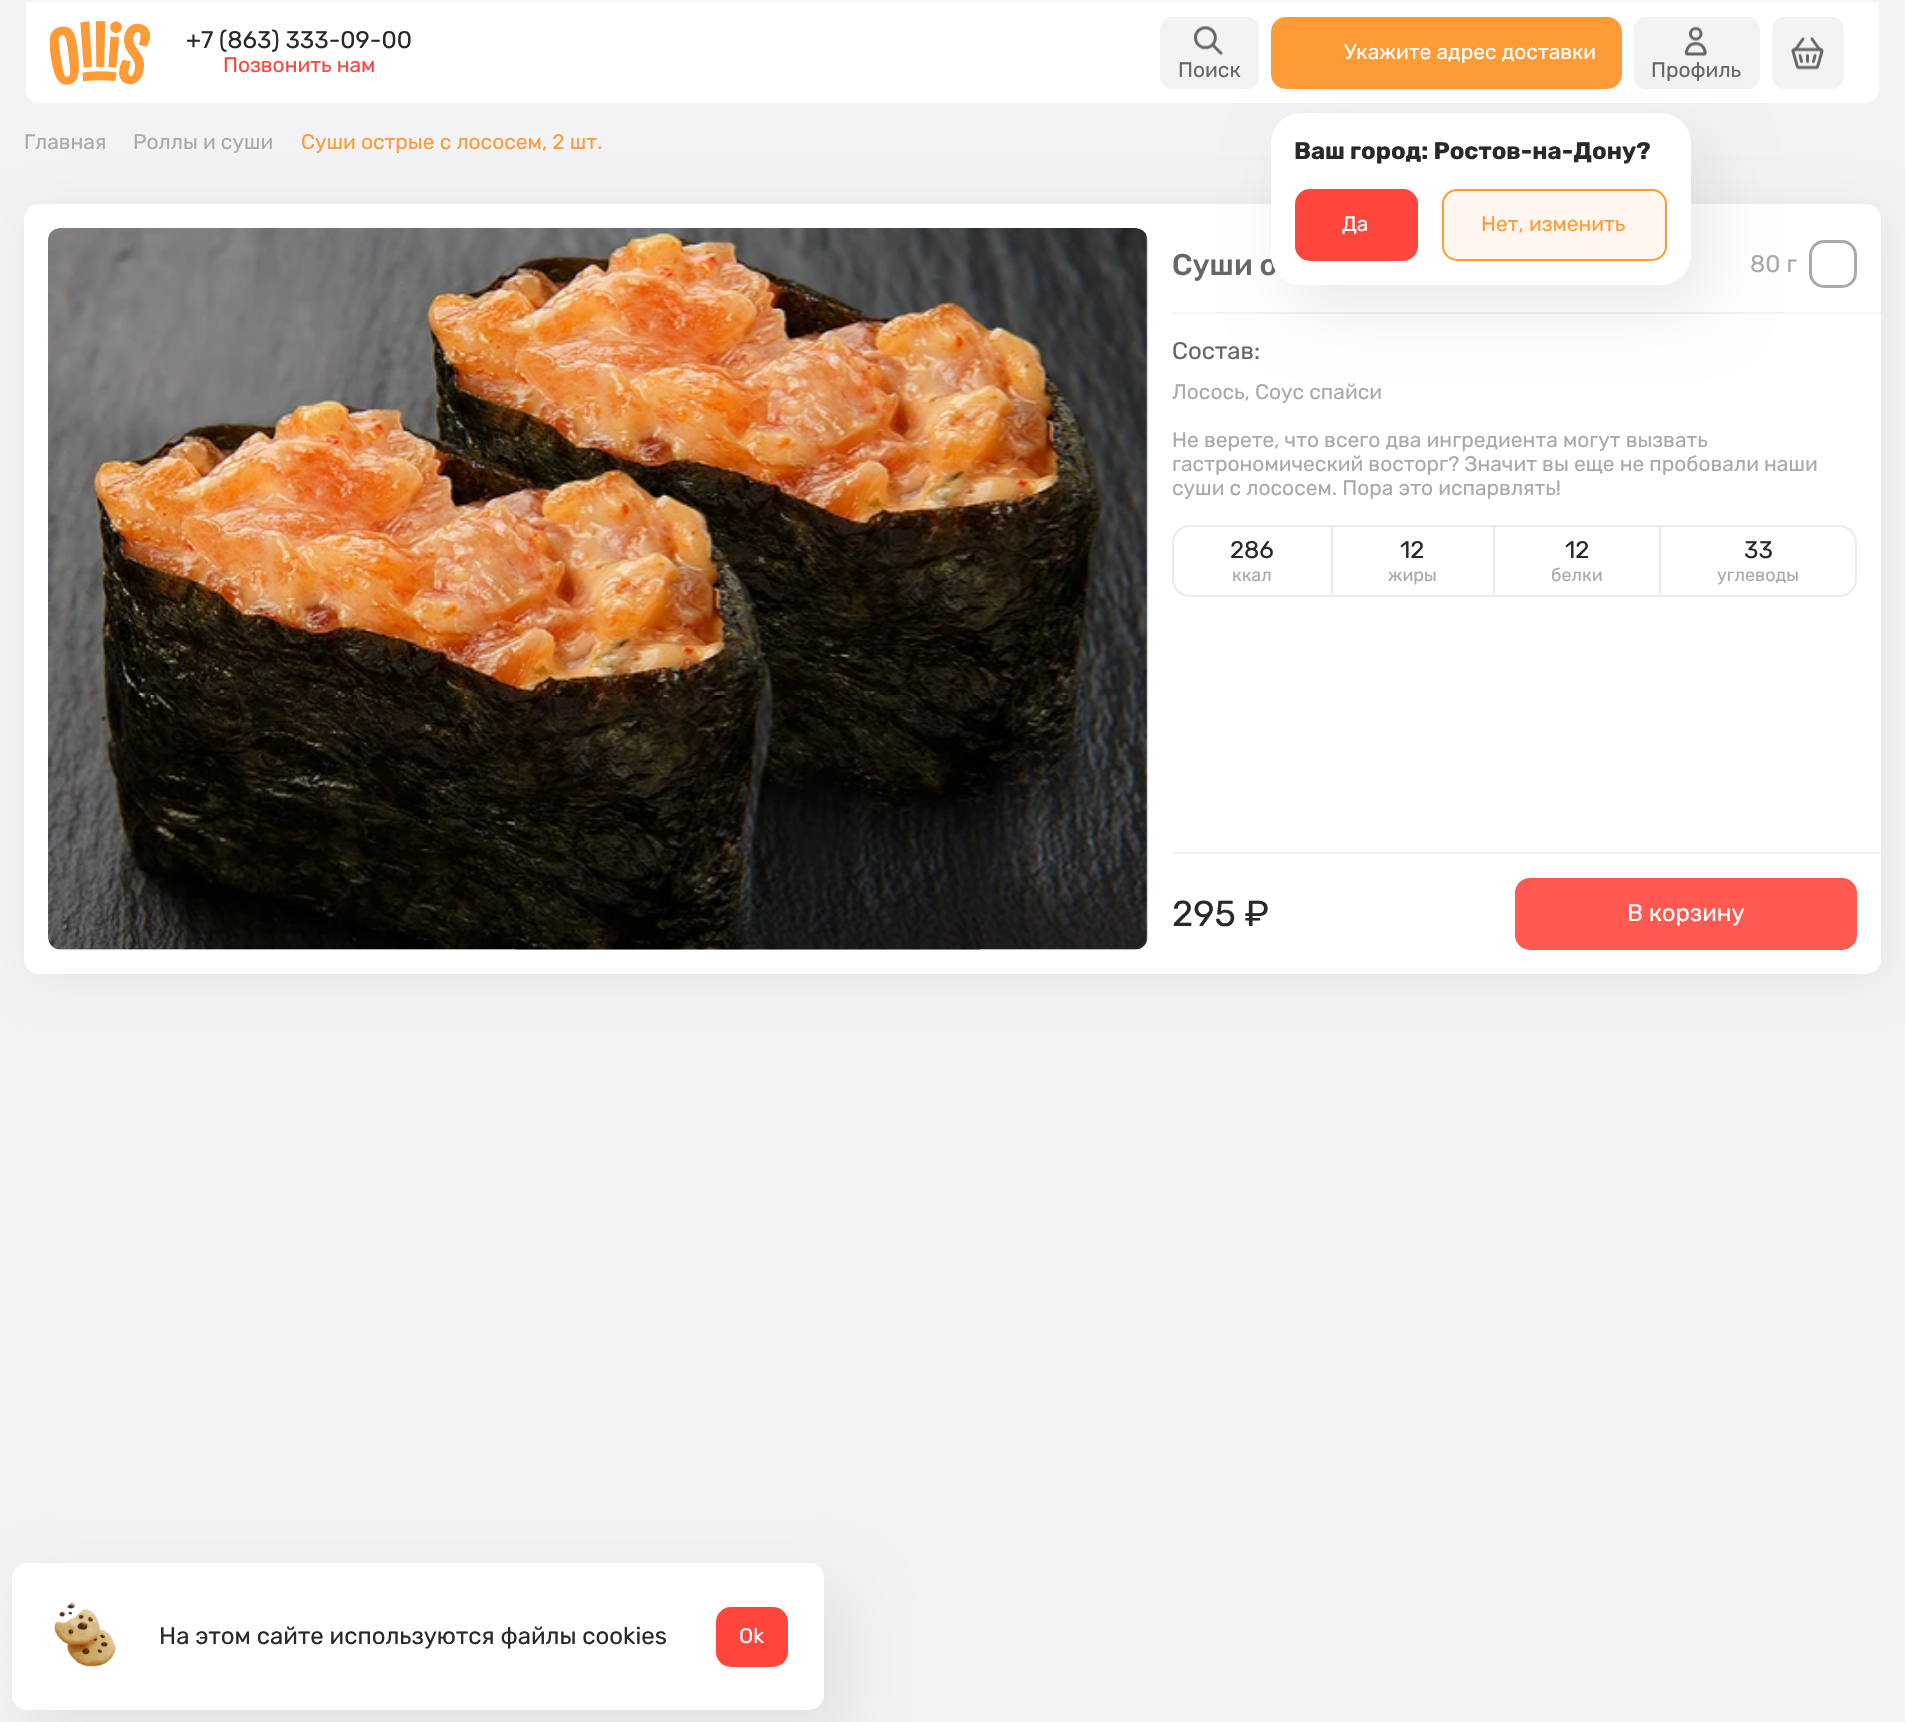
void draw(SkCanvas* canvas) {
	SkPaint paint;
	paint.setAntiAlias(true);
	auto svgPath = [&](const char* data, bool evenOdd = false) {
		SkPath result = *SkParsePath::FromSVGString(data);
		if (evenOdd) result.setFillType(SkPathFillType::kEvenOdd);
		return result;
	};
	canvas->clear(0xfff3f3f5);
	paint.setColor(0xffffffff);
	canvas->drawPath(svgPath("M25 1H1880V90C1880 97.5 1873.5 104 1866 104H39C31.5 104 25 97.5 25 90Z"), paint);
	paint.setStroke(true);
	paint.setStrokeWidth(2);
	paint.setColor(0xfff3f3f5);
	canvas->drawPath(svgPath("M25 1H1880V90C1880 97.5 1873.5 104 1866 104H39C31.5 104 25 97.5 25 90Z"), paint);
	canvas->drawImageRect(SkImages::DeferredFromEncodedData(SkData::MakeFromFileName("img1.png")), SkRect::MakeXYWH(50, 21, 100, 64), SkSamplingOptions());
	SkFont f1(fontMgr->matchFamilyStyle("Rubik", SkFontStyle::Normal()), 24);
	f1.setSubpixel(true);
	paint.setStroke(false);
	paint.setColor(0xff292929);
	canvas->drawString("+7 (863) 333-09-00", 186, 48, f1, paint);
	SkFont f2(fontMgr->matchFamilyStyle("Rubik", SkFontStyle::Normal()), 21);
	f2.setSubpixel(true);
	paint.setColor(0xffff463c);
	canvas->drawString("Позвонить нам", 223, 72, f2, paint);
	paint.setColor(0xfff3f3f5);
	canvas->drawRoundRect(SkRect::MakeXYWH(1160, 17, 99, 72), 12, 12, paint);
	canvas->drawImageRect(SkImages::DeferredFromEncodedData(SkData::MakeFromFileName("img2.png")), SkRect::MakeXYWH(1194, 25, 29, 31), SkSamplingOptions());
	paint.setColor(0xff666666);
	canvas->drawString("Поиск", 1178, 77, f2, paint);
	paint.setColor(0xffff9b37);
	canvas->drawRoundRect(SkRect::MakeXYWH(1272, 18, 349, 70), 14, 14, paint);
	paint.setStroke(true);
	canvas->drawRoundRect(SkRect::MakeXYWH(1272, 18, 349, 70), 14, 14, paint);
	paint.setStroke(false);
	paint.setColor(0xffffffff);
	canvas->drawString("Укажите адрес доставки", 1344, 59, f2, paint);
	paint.setColor(0xfff3f3f5);
	canvas->drawRoundRect(SkRect::MakeXYWH(1634, 17, 126, 72), 12, 12, paint);
	canvas->drawImageRect(SkImages::DeferredFromEncodedData(SkData::MakeFromFileName("img3.png")), SkRect::MakeXYWH(1684, 26, 23, 30), SkSamplingOptions());
	canvas->drawRoundRect(SkRect::MakeXYWH(1772, 17, 72, 72), 12, 12, paint);
	canvas->drawImageRect(SkImages::DeferredFromEncodedData(SkData::MakeFromFileName("img4.png")), SkRect::MakeXYWH(1791, 37, 33, 33), SkSamplingOptions());
	paint.setColor(0x0d000000);
	paint.setMaskFilter(SkMaskFilter::MakeBlur(kNormal_SkBlurStyle, 22.5));
	canvas->drawRoundRect(SkRect::MakeXYWH(30, 210, 1857, 770), 15, 15, paint);
	paint.setMaskFilter(nullptr);
	paint.setColor(0xffffffff);
	canvas->drawRoundRect(SkRect::MakeXYWH(24, 204, 1857, 770), 15, 15, paint);
	paint.setColor(0xfff3f3f5);
	canvas->drawRect(SkRect::MakeXYWH(1172, 312, 709, 2), paint);
	paint.setColor(0x14000000);
	paint.setMaskFilter(SkMaskFilter::MakeBlur(kNormal_SkBlurStyle, 31.5));
	canvas->drawRoundRect(SkRect::MakeXYWH(1290, 138, 420, 173), 30, 30, paint);
	paint.setMaskFilter(nullptr);
	SkFont f3(fontMgr->matchFamilyStyle("Rubik", SkFontStyle(500, SkFontStyle::kNormal_Width, SkFontStyle::kUpright_Slant)), 30);
	f3.setSubpixel(true);
	paint.setColor(0xff666666);
	canvas->drawString("Суши о", 1172, 275, f3, paint);
	paint.setColor(0xffffffff);
	canvas->drawRoundRect(SkRect::MakeXYWH(1271, 113, 420, 172), 30, 30, paint);
	SkFont f4(fontMgr->matchFamilyStyle("Rubik", SkFontStyle::Bold()), 24);
	f4.setSubpixel(true);
	paint.setColor(0xff292929);
	canvas->drawString("Ваш город: Ростов-на-Дону?", 1294, 159, f4, paint);
	paint.setColor(0xffff463c);
	canvas->drawRoundRect(SkRect::MakeXYWH(1295, 189, 123, 72), 15, 15, paint);
	paint.setColor(0xffffffff);
	canvas->drawString("Да", 1342, 231, f2, paint);
	paint.setColor(0xfffff7ef);
	canvas->drawRoundRect(SkRect::MakeXYWH(1443, 190, 223, 70), 14, 14, paint);
	paint.setStroke(true);
	paint.setColor(0xffff9b37);
	canvas->drawRoundRect(SkRect::MakeXYWH(1443, 190, 223, 70), 14, 14, paint);
	paint.setStroke(false);
	canvas->drawString("Нет, изменить", 1481, 231, f2, paint);
	paint.setColor(0xff666666);
	canvas->drawString("Профиль", 1651, 77, f2, paint);
	paint.setColor(0xffaaaaaa);
	canvas->drawString("Главная", 24, 149, f2, paint);
	canvas->drawString("Роллы и суши", 133, 149, f2, paint);
	paint.setColor(0xffff9b37);
	canvas->drawString("Суши острые с лососем, 2 шт.", 301, 149, f2, paint);
	paint.setColor(0xffeaeaf0);
	canvas->drawRoundRect(SkRect::MakeXYWH(48, 228, 1100, 722), 12, 12, paint);
	canvas->drawImageRect(SkImages::DeferredFromEncodedData(SkData::MakeFromFileName("img5.png")), SkRect::MakeXYWH(48, 228, 1100, 722), SkSamplingOptions());
	paint.setColor(0xffaaaaaa);
	canvas->drawString("80 г", 1750, 272, f1, paint);
	paint.setStroke(true);
	paint.setStrokeWidth(3);
	canvas->drawRoundRect(SkRect::MakeXYWH(1810.5, 241.5, 45, 45), 13.5, 13.5, paint);
	paint.setStroke(false);
	paint.setColor(0xfff3f3f5);
	canvas->drawRect(SkRect::MakeXYWH(1172, 852, 709, 2), paint);
	paint.setColor(0xff666666);
	canvas->drawString("Состав:", 1172, 359, f1, paint);
	paint.setColor(0xffaaaaaa);
	canvas->drawString("Лосось, Соус спайси", 1172, 399, f2, paint);
	canvas->drawString("Не верете, что всего два ингредиента могут вызвать", 1172, 447, f2, paint);
	canvas->drawString("гастрономический восторг? Значит вы еще не пробовали наши", 1172, 471, f2, paint);
	canvas->drawString("суши с лососем. Пора это испарвлять!", 1172, 495, f2, paint);
	paint.setStroke(true);
	paint.setStrokeWidth(2);
	paint.setColor(0xffeaeaf0);
	canvas->drawRoundRect(SkRect::MakeXYWH(1173, 526, 683, 70), 17, 17, paint);
	paint.setStroke(false);
	paint.setColor(0xff292929);
	canvas->drawString("286", 1230, 558, f1, paint);
	SkFont f5(fontMgr->matchFamilyStyle("Rubik", SkFontStyle::Normal()), 18);
	f5.setSubpixel(true);
	paint.setColor(0xffaaaaaa);
	canvas->drawString("ккал", 1232, 581, f5, paint);
	paint.setColor(0xffeaeaf0);
	canvas->drawRect(SkRect::MakeXYWH(1331, 527, 2, 69), paint);
	paint.setColor(0xff292929);
	canvas->drawString("12", 1400, 558, f1, paint);
	paint.setColor(0xffaaaaaa);
	canvas->drawString("жиры", 1388, 581, f5, paint);
	paint.setColor(0xffeaeaf0);
	canvas->drawRect(SkRect::MakeXYWH(1493, 527, 2, 69), paint);
	paint.setColor(0xff292929);
	canvas->drawString("12", 1565, 558, f1, paint);
	paint.setColor(0xffaaaaaa);
	canvas->drawString("белки", 1551, 581, f5, paint);
	paint.setColor(0xffeaeaf0);
	canvas->drawRect(SkRect::MakeXYWH(1659, 527, 2, 69), paint);
	paint.setColor(0xff292929);
	canvas->drawString("33", 1744, 558, f1, paint);
	paint.setColor(0xffaaaaaa);
	canvas->drawString("углеводы", 1717, 581, f5, paint);
	SkFont f6(fontMgr->matchFamilyStyle("Rubik", SkFontStyle::Normal()), 36);
	f6.setSubpixel(true);
	paint.setColor(0xff292929);
	canvas->drawString("295 ₽", 1172, 926, f6, paint);
	paint.setColor(0xffff463c);
	canvas->drawRoundRect(SkRect::MakeXYWH(1515, 878, 342, 72), 15, 15, paint);
	paint.setColor(0x1affffff);
	canvas->drawRoundRect(SkRect::MakeXYWH(1515, 878, 342, 72), 15, 15, paint);
	paint.setColor(0xffffffff);
	canvas->drawString("В корзину", 1627, 921, f1, paint);
	paint.setColor(0x14000000);
	paint.setMaskFilter(SkMaskFilter::MakeBlur(kNormal_SkBlurStyle, 31.5));
	canvas->drawRoundRect(SkRect::MakeXYWH(32, 1589, 811, 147), 15, 15, paint);
	paint.setMaskFilter(nullptr);
	paint.setColor(0xffffffff);
	canvas->drawRoundRect(SkRect::MakeXYWH(12, 1563, 812, 147), 15, 15, paint);
	canvas->drawImageRect(SkImages::DeferredFromEncodedData(SkData::MakeFromFileName("img6.png")), SkRect::MakeXYWH(54, 1602, 62, 65), SkSamplingOptions());
	paint.setColor(0xff292929);
	canvas->drawString("На этом сайте используются файлы cookies", 159, 1644, f1, paint);
	paint.setColor(0xffff463c);
	canvas->drawRoundRect(SkRect::MakeXYWH(716, 1607, 72, 60), 15, 15, paint);
	paint.setColor(0xffffffff);
	canvas->drawString("Оk", 739, 1643, f2, paint);
}
